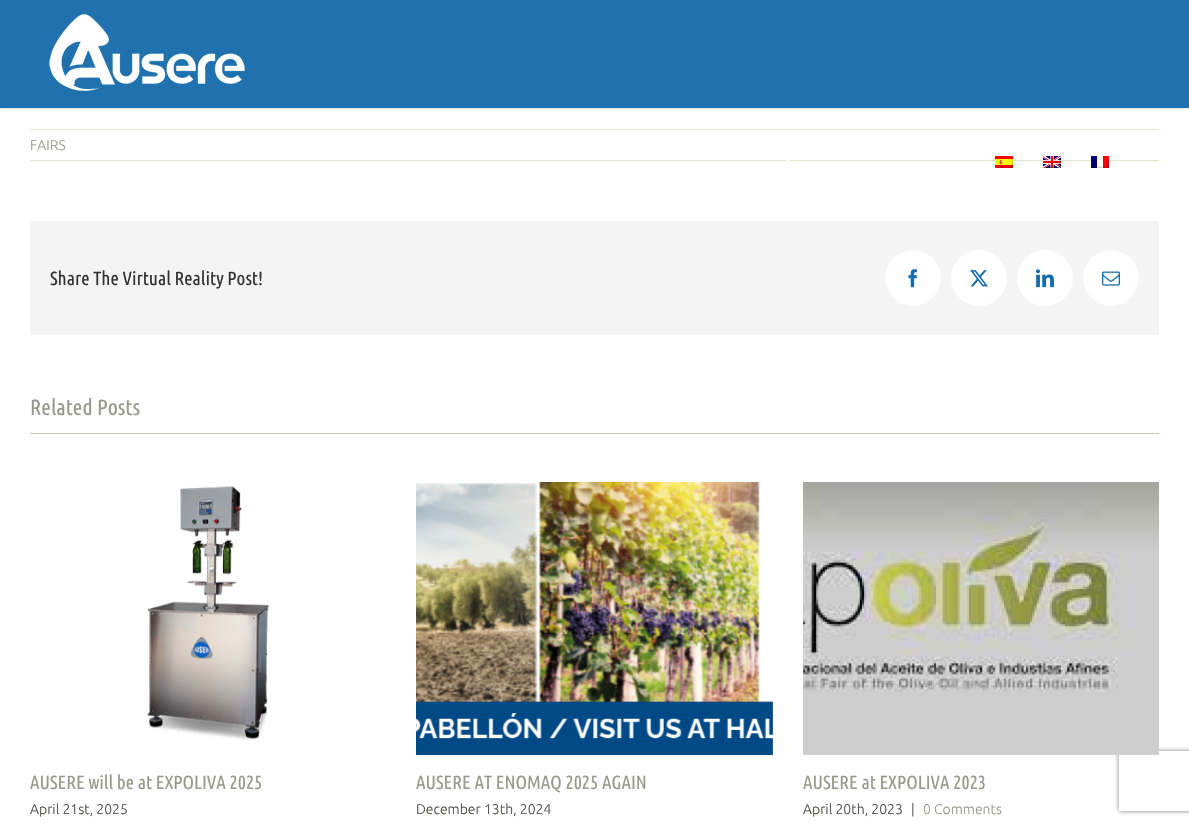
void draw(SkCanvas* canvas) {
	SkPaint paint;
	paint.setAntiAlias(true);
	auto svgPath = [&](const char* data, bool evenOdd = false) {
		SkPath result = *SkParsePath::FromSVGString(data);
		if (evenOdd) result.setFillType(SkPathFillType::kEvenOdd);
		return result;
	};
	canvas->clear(0xffffffff);
	paint.setColor(0xff1f72ad);
	canvas->drawRect(SkRect::MakeXYWH(0, 0, 1189, 108), paint);
	canvas->save();
	canvas->clipRect(SkRect::MakeXYWH(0, 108, 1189, 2));
	paint.setColor(0x1f000000);
	paint.setMaskFilter(SkMaskFilter::MakeBlur(kNormal_SkBlurStyle, 1.5));
	canvas->drawRect(SkRect::MakeXYWH(0, 1, 1189, 108), paint);
	paint.setMaskFilter(nullptr);
	canvas->restore();
	canvas->drawImageRect(SkImages::DeferredFromEncodedData(SkData::MakeFromFileName("img1.png")), SkRect::MakeXYWH(49, 14, 196, 77), SkSamplingOptions());
	paint.setColor(0xffe5e4d1);
	canvas->drawRect(SkRect::MakeXYWH(30, 160, 1129, 1), paint);
	canvas->drawImageRect(SkImages::DeferredFromEncodedData(SkData::MakeFromFileName("img2.png")), SkRect::MakeXYWH(786, 160, 5, 1), SkSamplingOptions());
	canvas->drawImageRect(SkImages::DeferredFromEncodedData(SkData::MakeFromFileName("img3.png")), SkRect::MakeXYWH(995, 156, 18, 12), SkSamplingOptions());
	canvas->drawImageRect(SkImages::DeferredFromEncodedData(SkData::MakeFromFileName("img4.png")), SkRect::MakeXYWH(1043, 156, 18, 12), SkSamplingOptions());
	canvas->drawImageRect(SkImages::DeferredFromEncodedData(SkData::MakeFromFileName("img5.png")), SkRect::MakeXYWH(1091, 156, 18, 12), SkSamplingOptions());
	canvas->drawRect(SkRect::MakeXYWH(30, 129, 1129, 1), paint);
	SkFont f1(fontMgr->matchFamilyStyle("Ubuntu", SkFontStyle(300, SkFontStyle::kNormal_Width, SkFontStyle::kUpright_Slant)), 14);
	f1.setSubpixel(true);
	paint.setColor(0xff99988c);
	canvas->drawString("FAIRS", 30, 150, f1, paint);
	paint.setColor(0xfff4f4f4);
	canvas->drawRect(SkRect::MakeXYWH(30, 221, 1129, 114), paint);
	SkFont f2(fontMgr->matchFamilyStyle("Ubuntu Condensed", SkFontStyle::Normal()), 19);
	f2.setSubpixel(true);
	paint.setColor(0xff333333);
	canvas->drawString("Share The Virtual Reality Post!", 50, 285, f2, paint);
	paint.setColor(0xffffffff);
	canvas->drawCircle(913, 278, 27.5, paint);
	paint.setStroke(true);
	paint.setStrokeWidth(1);
	canvas->drawCircle(913, 278, 27.5, paint);
	canvas->drawImageRect(SkImages::DeferredFromEncodedData(SkData::MakeFromFileName("img6.png")), SkRect::MakeXYWH(908, 269, 9, 19), SkSamplingOptions());
	paint.setStroke(false);
	canvas->drawCircle(979, 278, 27.5, paint);
	paint.setStroke(true);
	canvas->drawCircle(979, 278, 27.5, paint);
	canvas->drawImageRect(SkImages::DeferredFromEncodedData(SkData::MakeFromFileName("img7.png")), SkRect::MakeXYWH(970, 270, 18, 17), SkSamplingOptions());
	paint.setStroke(false);
	canvas->drawCircle(1045, 278, 27.5, paint);
	paint.setStroke(true);
	canvas->drawCircle(1045, 278, 27.5, paint);
	canvas->drawImageRect(SkImages::DeferredFromEncodedData(SkData::MakeFromFileName("img8.png")), SkRect::MakeXYWH(1036, 269, 18, 19), SkSamplingOptions());
	paint.setStroke(false);
	canvas->drawCircle(1111, 278, 27.5, paint);
	paint.setStroke(true);
	canvas->drawCircle(1111, 278, 27.5, paint);
	canvas->drawImageRect(SkImages::DeferredFromEncodedData(SkData::MakeFromFileName("img9.png")), SkRect::MakeXYWH(1102, 271, 18, 15), SkSamplingOptions());
	paint.setStroke(false);
	paint.setColor(0xffcccaba);
	canvas->drawRect(SkRect::MakeXYWH(30, 433, 1129, 1), paint);
	SkFont f3(fontMgr->matchFamilyStyle("Ubuntu Condensed", SkFontStyle::Normal()), 22);
	f3.setSubpixel(true);
	paint.setColor(0xff99988c);
	canvas->drawString("Related Posts", 30, 415, f3, paint);
	canvas->drawImageRect(SkImages::DeferredFromEncodedData(SkData::MakeFromFileName("img10.png")), SkRect::MakeXYWH(147, 486, 122, 255), SkSamplingOptions());
	canvas->drawString("AUSERE will be at EXPOLIVA 2025", 30, 789, f2, paint);
	paint.setColor(0xff4d4c46);
	canvas->drawString("April 21st, 2025", 30, 814, f1, paint);
	canvas->drawImageRect(SkImages::DeferredFromEncodedData(SkData::MakeFromFileName("img11.png")), SkRect::MakeXYWH(416, 482, 357, 273), SkSamplingOptions());
	paint.setColor(0xff99988c);
	canvas->drawString("AUSERE AT ENOMAQ 2025 AGAIN", 416, 789, f2, paint);
	paint.setColor(0xff4d4c46);
	canvas->drawString("December 13th, 2024", 416, 814, f1, paint);
	canvas->save();
	canvas->clipPath(svgPath("M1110 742H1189V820H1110ZM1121 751H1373C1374 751 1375 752 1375 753V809C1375 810 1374 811 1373 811H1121C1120 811 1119 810 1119 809V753C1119 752 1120 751 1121 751Z", true), true);
	paint.setColor(0xff808080);
	paint.setMaskFilter(SkMaskFilter::MakeBlur(kNormal_SkBlurStyle, 2.5));
	canvas->drawRoundRect(SkRect::MakeXYWH(1119, 751, 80, 60), 2, 2, paint);
	paint.setMaskFilter(nullptr);
	canvas->restore();
	canvas->drawImageRect(SkImages::DeferredFromEncodedData(SkData::MakeFromFileName("img12.png")), SkRect::MakeXYWH(803, 482, 356, 273), SkSamplingOptions());
	paint.setColor(0xff99988c);
	canvas->drawString("AUSERE at EXPOLIVA 2023", 803, 789, f2, paint);
	paint.setColor(0xff4d4c46);
	canvas->drawString("April 20th, 2023", 803, 814, f1, paint);
	canvas->drawString("|", 911, 814, f1, paint);
	paint.setColor(0xff99988c);
	canvas->drawString("0 Comments", 923, 814, f1, paint);
}
